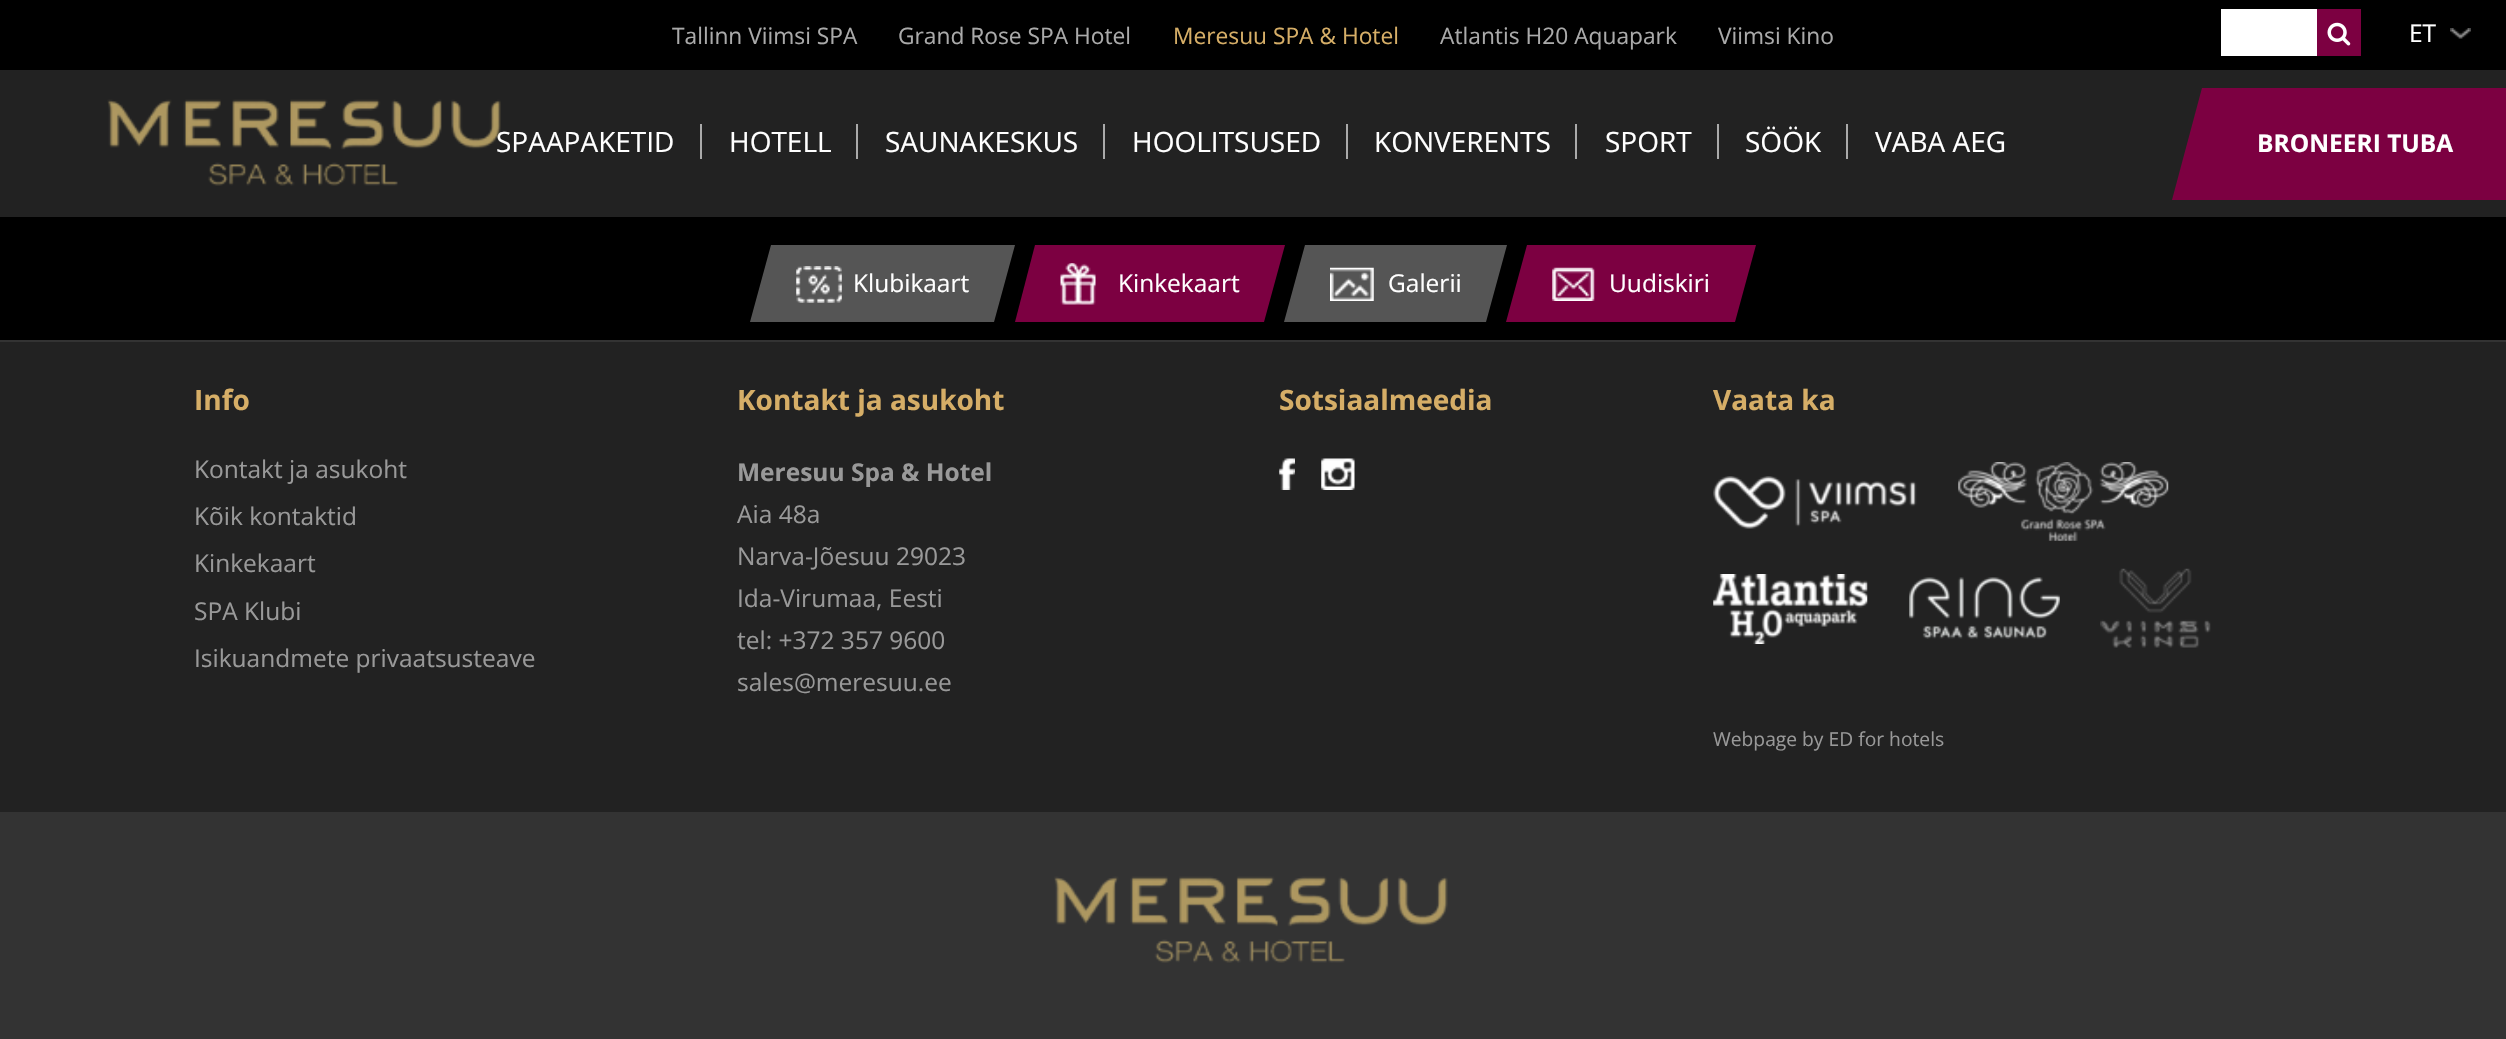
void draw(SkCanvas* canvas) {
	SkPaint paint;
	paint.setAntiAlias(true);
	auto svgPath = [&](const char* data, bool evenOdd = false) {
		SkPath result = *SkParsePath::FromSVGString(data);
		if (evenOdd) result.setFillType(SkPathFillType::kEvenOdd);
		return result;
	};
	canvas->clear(0xff222222);
	paint.setColor(0xff000000);
	canvas->drawRect(SkRect::MakeXYWH(0, 0, 2506, 70), paint);
	SkFont f1(fontMgr->matchFamilyStyle("Open Sans", SkFontStyle::Normal()), 22.75);
	f1.setSubpixel(true);
	paint.setColor(0xffaaaaaa);
	canvas->drawString("Tallinn Viimsi SPA", 672, 44, f1, paint);
	canvas->drawString("Grand Rose SPA Hotel", 898, 44, f1, paint);
	paint.setColor(0xffd6ae67);
	canvas->drawString("Meresuu SPA & Hotel", 1173, 44, f1, paint);
	paint.setColor(0xffaaaaaa);
	canvas->drawString("Atlantis H20 Aquapark", 1440, 44, f1, paint);
	canvas->drawString("Viimsi Kino", 1718, 44, f1, paint);
	paint.setColor(0xffffffff);
	canvas->drawRect(SkRect::MakeXYWH(2221, 9, 96, 47), paint);
	paint.setColor(0xff7c0041);
	canvas->drawRect(SkRect::MakeXYWH(2317, 9, 44, 47), paint);
	canvas->drawImageRect(SkImages::DeferredFromEncodedData(SkData::MakeFromFileName("img1.png")), SkRect::MakeXYWH(2327, 22, 24, 24), SkSamplingOptions());
	canvas->drawImageRect(SkImages::DeferredFromEncodedData(SkData::MakeFromFileName("img2.png")), SkRect::MakeXYWH(2450, 28, 21, 11), SkSamplingOptions());
	SkFont f2(fontMgr->matchFamilyStyle("Open Sans", SkFontStyle::Normal()), 24.5);
	f2.setSubpixel(true);
	paint.setColor(0xffffffff);
	canvas->drawString("ET", 2409, 42, f2, paint);
	SkFont f3(fontMgr->matchFamilyStyle("Open Sans", SkFontStyle::Normal()), 28);
	f3.setSubpixel(true);
	canvas->drawString("SPAAPAKETID", 496, 152, f3, paint);
	canvas->drawImageRect(SkImages::DeferredFromEncodedData(SkData::MakeFromFileName("img3.png")), SkRect::MakeXYWH(107, 99, 394, 87), SkSamplingOptions());
	paint.setColor(0xffaaaaaa);
	canvas->drawRect(SkRect::MakeXYWH(700, 124, 2, 35), paint);
	canvas->drawRect(SkRect::MakeXYWH(856, 124, 2, 35), paint);
	paint.setColor(0xffffffff);
	canvas->drawString("HOTELL", 729, 152, f3, paint);
	paint.setColor(0xffaaaaaa);
	canvas->drawRect(SkRect::MakeXYWH(1103, 124, 2, 35), paint);
	paint.setColor(0xffffffff);
	canvas->drawString("SAUNAKESKUS", 885, 152, f3, paint);
	paint.setColor(0xffaaaaaa);
	canvas->drawRect(SkRect::MakeXYWH(1346, 124, 2, 35), paint);
	paint.setColor(0xffffffff);
	canvas->drawString("HOOLITSUSED", 1132, 152, f3, paint);
	paint.setColor(0xffaaaaaa);
	canvas->drawRect(SkRect::MakeXYWH(1575, 124, 2, 35), paint);
	paint.setColor(0xffffffff);
	canvas->drawString("KONVERENTS", 1374, 152, f3, paint);
	paint.setColor(0xffaaaaaa);
	canvas->drawRect(SkRect::MakeXYWH(1717, 124, 2, 35), paint);
	paint.setColor(0xffffffff);
	canvas->drawString("SPORT", 1605, 152, f3, paint);
	paint.setColor(0xffaaaaaa);
	canvas->drawRect(SkRect::MakeXYWH(1846, 124, 2, 35), paint);
	paint.setColor(0xffffffff);
	canvas->drawString("SÖÖK", 1745, 152, f3, paint);
	canvas->drawString("VABA AEG", 1875, 152, f3, paint);
	paint.setColor(0xff7c0041);
	canvas->drawPath(svgPath("M2202 88H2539L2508 200H2172Z"), paint);
	SkFont f4(fontMgr->matchFamilyStyle("Open Sans", SkFontStyle::Bold()), 24.5);
	f4.setSubpixel(true);
	paint.setColor(0xffffffff);
	canvas->drawString("BRONEERI TUBA", 2257, 152, f4, paint);
	paint.setColor(0xff000000);
	canvas->drawRect(SkRect::MakeXYWH(0, 217, 2506, 123), paint);
	paint.setColor(0xff333333);
	canvas->drawRect(SkRect::MakeXYWH(0, 340, 2506, 2), paint);
	paint.setColor(0xff555555);
	canvas->drawPath(svgPath("M771 245H1015L994 322H750Z"), paint);
	canvas->drawImageRect(SkImages::DeferredFromEncodedData(SkData::MakeFromFileName("img4.png")), SkRect::MakeXYWH(796, 266, 46, 37), SkSamplingOptions());
	paint.setColor(0xffffffff);
	canvas->drawString("Klubikaart", 853, 292, f2, paint);
	paint.setColor(0xff7c0041);
	canvas->drawPath(svgPath("M1035 245H1285L1264 322H1015Z"), paint);
	canvas->drawImageRect(SkImages::DeferredFromEncodedData(SkData::MakeFromFileName("img5.png")), SkRect::MakeXYWH(1060, 263, 36, 42), SkSamplingOptions());
	paint.setColor(0xffffffff);
	canvas->drawString("Kinkekaart", 1118, 292, f2, paint);
	paint.setColor(0xff555555);
	canvas->drawPath(svgPath("M1305 245H1507L1486 322H1284Z"), paint);
	canvas->drawImageRect(SkImages::DeferredFromEncodedData(SkData::MakeFromFileName("img6.png")), SkRect::MakeXYWH(1330, 267, 44, 34), SkSamplingOptions());
	paint.setColor(0xffffffff);
	canvas->drawString("Galerii", 1388, 292, f2, paint);
	paint.setColor(0xff7c0041);
	canvas->drawPath(svgPath("M1527 245H1756L1735 322H1506Z"), paint);
	canvas->drawImageRect(SkImages::DeferredFromEncodedData(SkData::MakeFromFileName("img7.png")), SkRect::MakeXYWH(1552, 267, 43, 34), SkSamplingOptions());
	paint.setColor(0xffffffff);
	canvas->drawString("Uudiskiri", 1609, 292, f2, paint);
	SkFont f5(fontMgr->matchFamilyStyle("Open Sans", SkFontStyle::Bold()), 28);
	f5.setSubpixel(true);
	paint.setColor(0xffd6ae67);
	canvas->drawString("Info", 194, 410, f5, paint);
	paint.setColor(0xff999999);
	canvas->drawString("Kontakt ja asukoht", 194, 478, f2, paint);
	canvas->drawString("Kõik kontaktid", 194, 525, f2, paint);
	canvas->drawString("Kinkekaart", 194, 572, f2, paint);
	canvas->drawString("SPA Klubi", 194, 620, f2, paint);
	canvas->drawString("Isikuandmete privaatsusteave", 194, 667, f2, paint);
	paint.setColor(0xffd6ae67);
	canvas->drawString("Kontakt ja asukoht", 737, 410, f5, paint);
	paint.setColor(0xff999999);
	canvas->drawString("Meresuu Spa & Hotel", 737, 481, f4, paint);
	canvas->drawString("Aia 48a", 737, 523, f2, paint);
	canvas->drawString("Narva-Jõesuu 29023", 737, 565, f2, paint);
	canvas->drawString("Ida-Virumaa, Eesti", 737, 607, f2, paint);
	canvas->drawString("tel: +372 357 9600", 737, 649, f2, paint);
	canvas->drawString("sales@meresuu.ee", 737, 691, f2, paint);
	paint.setColor(0xffd6ae67);
	canvas->drawString("Sotsiaalmeedia", 1279, 410, f5, paint);
	canvas->drawImageRect(SkImages::DeferredFromEncodedData(SkData::MakeFromFileName("img8.png")), SkRect::MakeXYWH(1279, 458, 16, 32), SkSamplingOptions());
	canvas->drawImageRect(SkImages::DeferredFromEncodedData(SkData::MakeFromFileName("img9.png")), SkRect::MakeXYWH(1321, 458, 34, 32), SkSamplingOptions());
	canvas->drawString("Vaata ka", 1713, 410, f5, paint);
	canvas->drawImageRect(SkImages::DeferredFromEncodedData(SkData::MakeFromFileName("img10.png")), SkRect::MakeXYWH(1713, 476, 204, 53), SkSamplingOptions());
	canvas->drawImageRect(SkImages::DeferredFromEncodedData(SkData::MakeFromFileName("img11.png")), SkRect::MakeXYWH(1958, 462, 211, 79), SkSamplingOptions());
	canvas->drawImageRect(SkImages::DeferredFromEncodedData(SkData::MakeFromFileName("img12.png")), SkRect::MakeXYWH(1713, 574, 155, 70), SkSamplingOptions());
	canvas->drawImageRect(SkImages::DeferredFromEncodedData(SkData::MakeFromFileName("img13.png")), SkRect::MakeXYWH(1909, 577, 151, 62), SkSamplingOptions());
	canvas->drawImageRect(SkImages::DeferredFromEncodedData(SkData::MakeFromFileName("img14.png")), SkRect::MakeXYWH(2100, 568, 111, 80), SkSamplingOptions());
	SkFont f6(fontMgr->matchFamilyStyle("Open Sans", SkFontStyle::Normal()), 19.25);
	f6.setSubpixel(true);
	paint.setColor(0xff999999);
	canvas->drawString("Webpage by ED for hotels", 1713, 746, f6, paint);
	paint.setColor(0xff333333);
	canvas->drawRect(SkRect::MakeXYWH(0, 812, 2506, 227), paint);
	canvas->drawImageRect(SkImages::DeferredFromEncodedData(SkData::MakeFromFileName("img15.png")), SkRect::MakeXYWH(1054, 876, 394, 87), SkSamplingOptions());
}
